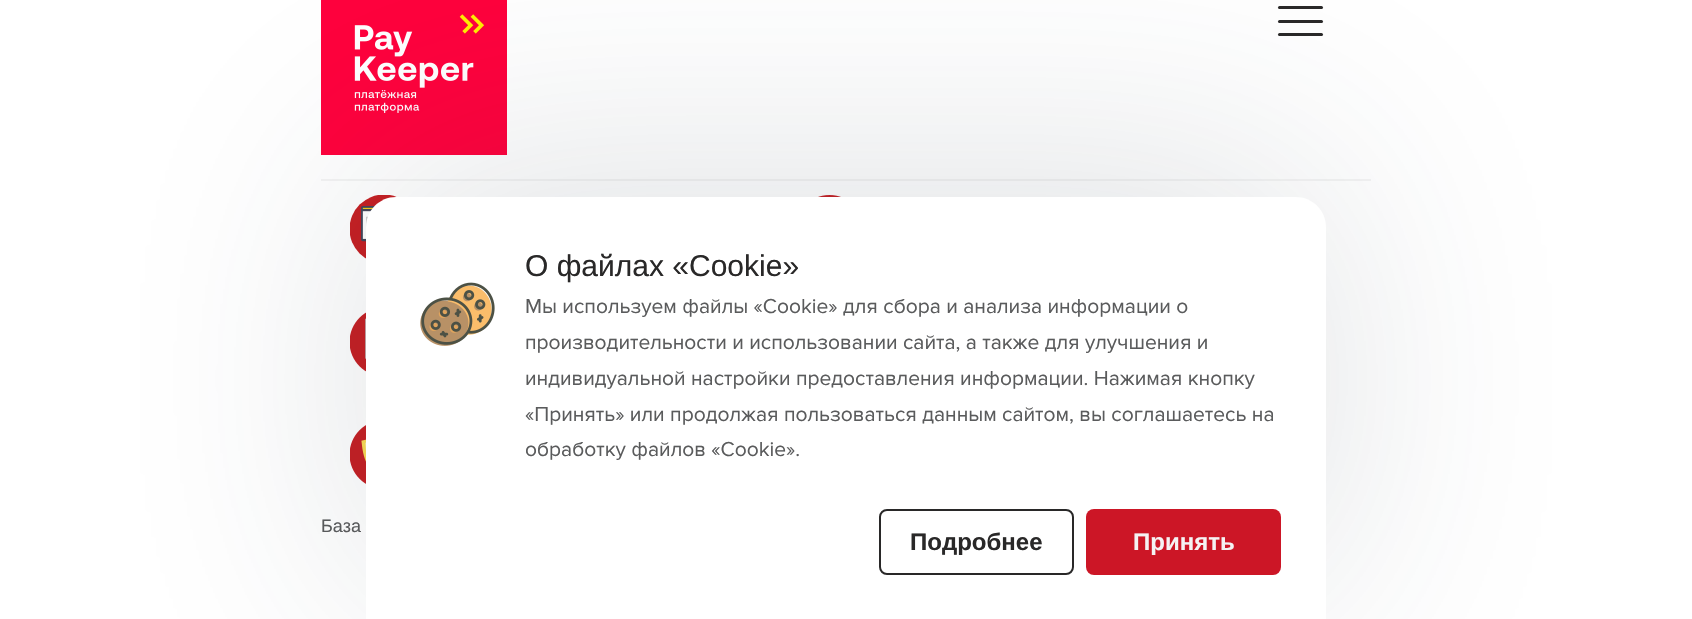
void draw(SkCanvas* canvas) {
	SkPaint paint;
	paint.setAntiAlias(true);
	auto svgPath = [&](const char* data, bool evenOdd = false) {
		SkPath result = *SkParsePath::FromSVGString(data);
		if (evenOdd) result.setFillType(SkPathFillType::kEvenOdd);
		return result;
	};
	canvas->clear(0xffffffff);
	canvas->drawImageRect(SkImages::DeferredFromEncodedData(SkData::MakeFromFileName("img1.png")), SkRect::MakeXYWH(321, 0, 186, 155), SkSamplingOptions());
	paint.setColor(0xff292828);
	canvas->drawRoundRect(SkRect::MakeXYWH(1278, 20, 45, 3), 1.5, 1.5, paint);
	canvas->drawRoundRect(SkRect::MakeXYWH(1278, 6, 45, 3), 1.5, 1.5, paint);
	canvas->drawRoundRect(SkRect::MakeXYWH(1278, 33, 45, 3), 1.5, 1.5, paint);
	paint.setColor(0xfff4f4f4);
	canvas->drawRect(SkRect::MakeXYWH(321, 179, 1050, 2), paint);
	canvas->drawImageRect(SkImages::DeferredFromEncodedData(SkData::MakeFromFileName("img2.png")), SkRect::MakeXYWH(350, 195, 47, 64), SkSamplingOptions());
	canvas->drawImageRect(SkImages::DeferredFromEncodedData(SkData::MakeFromFileName("img3.png")), SkRect::MakeXYWH(818, 195, 23, 2), SkSamplingOptions());
	canvas->drawImageRect(SkImages::DeferredFromEncodedData(SkData::MakeFromFileName("img4.png")), SkRect::MakeXYWH(350, 312, 16, 60), SkSamplingOptions());
	canvas->drawImageRect(SkImages::DeferredFromEncodedData(SkData::MakeFromFileName("img5.png")), SkRect::MakeXYWH(350, 425, 16, 59), SkSamplingOptions());
	SkFont f1(fontMgr->matchFamilyStyle("Liberation Sans", SkFontStyle::Normal()), 18);
	f1.setSubpixel(true);
	paint.setColor(0xff5a5b5c);
	canvas->drawString("База", 321, 532, f1, paint);
	paint.setColor(0x262f3d4d);
	paint.setMaskFilter(SkMaskFilter::MakeBlur(kNormal_SkBlurStyle, 187.5));
	canvas->drawRoundRect(SkRect::MakeXYWH(366, 167, 960, 423), 30, 30, paint);
	paint.setMaskFilter(nullptr);
	paint.setColor(0xffffffff);
	canvas->drawPath(svgPath("M396 197H1296C1312.5 197 1326 210.5 1326 227V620H366V227C366 210.5 379.5 197 396 197Z"), paint);
	canvas->drawImageRect(SkImages::DeferredFromEncodedData(SkData::MakeFromFileName("img6.png")), SkRect::MakeXYWH(420, 282, 75, 64), SkSamplingOptions());
	SkFont f2(fontMgr->matchFamilyStyle("Liberation Sans", SkFontStyle::Normal()), 30);
	f2.setSubpixel(true);
	paint.setColor(0xff292828);
	canvas->drawString("О файлах «Cookie»", 525, 276, f2, paint);
	SkFont f3(fontMgr->matchFamilyStyle("Proxima Nova", SkFontStyle::Normal()), 21);
	f3.setSubpixel(true);
	paint.setColor(0xff5a5b5c);
	canvas->drawString("Мы используем файлы «Cookie» для сбора и анализа информации о", 525, 313, f3, paint);
	canvas->drawString("производительности и использовании сайта, а также для улучшения и", 525, 349, f3, paint);
	canvas->drawString("индивидуальной настройки предоставления информации. Нажимая кнопку", 525, 385, f3, paint);
	canvas->drawString("«Принять» или продолжая пользоваться данным сайтом, вы соглашаетесь на", 525, 421, f3, paint);
	canvas->drawString("обработку файлов «Cookie».", 525, 456, f3, paint);
	paint.setStroke(true);
	paint.setStrokeWidth(2);
	paint.setColor(0xff292828);
	canvas->drawRoundRect(SkRect::MakeXYWH(880, 510, 193, 64), 7, 7, paint);
	SkFont f4(fontMgr->matchFamilyStyle("Liberation Sans", SkFontStyle::Bold()), 24);
	f4.setSubpixel(true);
	paint.setStroke(false);
	canvas->drawString("Подробнее", 910, 550, f4, paint);
	paint.setColor(0xffcc1626);
	canvas->drawRoundRect(SkRect::MakeXYWH(1086, 509, 195, 66), 8, 8, paint);
	paint.setColor(0xfff5f2f3);
	canvas->drawString("Принять", 1133, 550, f4, paint);
}
